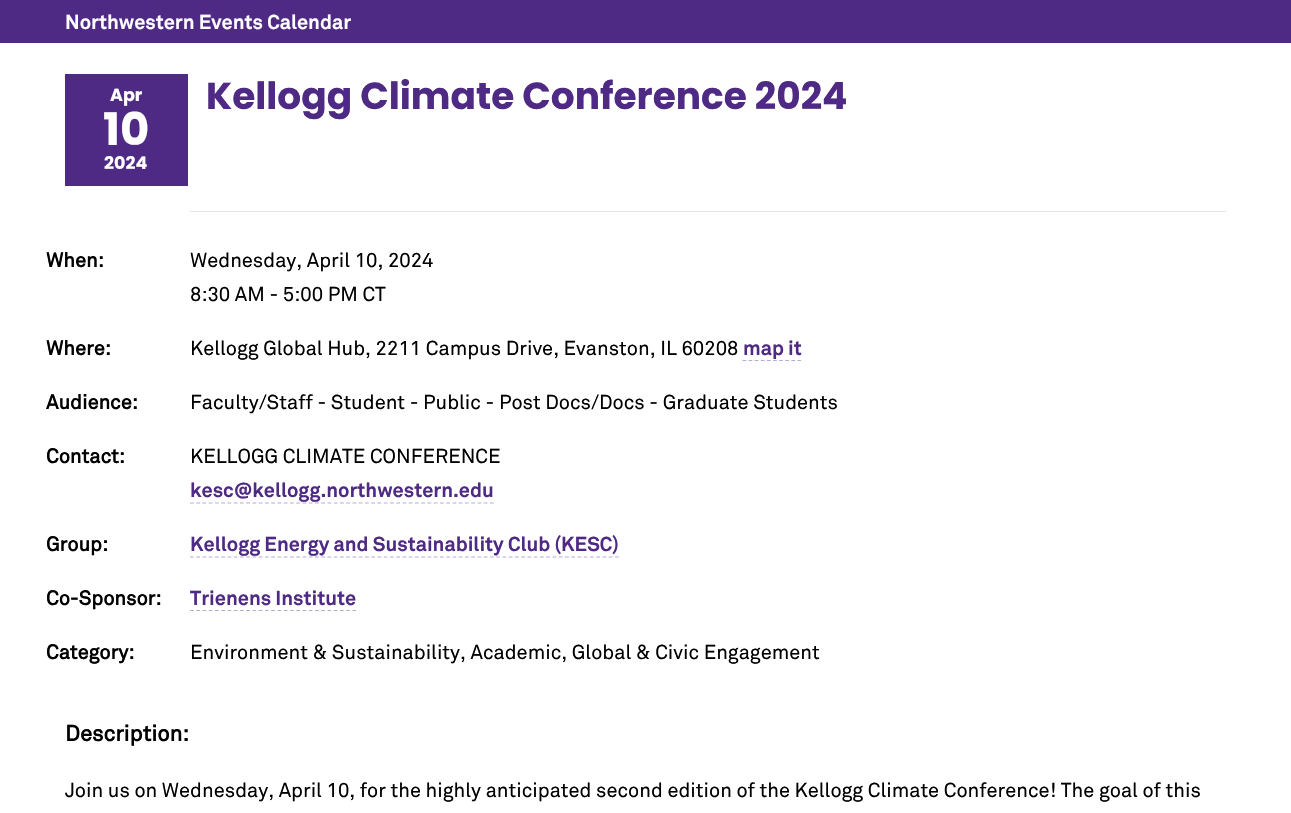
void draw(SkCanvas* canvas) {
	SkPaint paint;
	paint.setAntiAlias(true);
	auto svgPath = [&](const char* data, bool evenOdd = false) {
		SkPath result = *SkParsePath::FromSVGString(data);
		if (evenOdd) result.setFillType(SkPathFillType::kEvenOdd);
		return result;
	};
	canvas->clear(0xffffffff);
	paint.setColor(0xff4e2a84);
	canvas->drawRect(SkRect::MakeXYWH(0, 0, 1291, 43), paint);
	SkFont f1(fontMgr->matchFamilyStyle("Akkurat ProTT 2", SkFontStyle::Bold()), 20);
	f1.setSubpixel(true);
	paint.setColor(0xffffffff);
	canvas->drawString("Northwestern Events Calendar", 65, 29, f1, paint);
	paint.setColor(0xff4e2a84);
	canvas->drawRect(SkRect::MakeXYWH(65, 74, 123, 112), paint);
	SkFont f2(fontMgr->matchFamilyStyle("Poppins", SkFontStyle::Bold()), 17.5);
	f2.setSubpixel(true);
	paint.setColor(0xffffffff);
	canvas->drawString("Apr", 110, 101, f2, paint);
	SkFont f3(fontMgr->matchFamilyStyle("Poppins", SkFontStyle::Bold()), 45);
	f3.setSubpixel(true);
	canvas->drawString("10", 103, 145, f3, paint);
	canvas->drawString("2024", 104, 169, f2, paint);
	SkFont f4(fontMgr->matchFamilyStyle("Poppins", SkFontStyle::Bold()), 37.5);
	f4.setSubpixel(true);
	paint.setColor(0xff4e2a84);
	canvas->drawString("Kellogg Climate Conference 2024", 206, 109, f4, paint);
	paint.setColor(0xffe4e4e4);
	canvas->drawRect(SkRect::MakeXYWH(190, 211, 1036, 1), paint);
	SkFont f5(fontMgr->matchFamilyStyle("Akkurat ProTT", SkFontStyle::Bold()), 20);
	f5.setSubpixel(true);
	paint.setColor(0xff000000);
	canvas->drawString("When:", 46, 267, f5, paint);
	SkFont f6(fontMgr->matchFamilyStyle("Akkurat ProTT", SkFontStyle::Normal()), 20);
	f6.setSubpixel(true);
	canvas->drawString("Wednesday, April 10, 2024", 190, 267, f6, paint);
	canvas->drawString("8:30 AM - 5:00 PM CT", 190, 301, f6, paint);
	canvas->drawString("Where:", 46, 355, f5, paint);
	canvas->drawString("Kellogg Global Hub, 2211 Campus Drive, Evanston, IL 60208", 190, 355, f6, paint);
	paint.setColor(0xff4e2a84);
	canvas->drawString("map it", 743, 355, f1, paint);
	paint.setStroke(true);
	paint.setStrokeWidth(1.2);
	paint.setColor(0xffb6acd1);
	paint.setPathEffect(SkDashPathEffect::Make({{3.75f, 2.36f}}, 0));
	canvas->drawPath(svgPath("M742.5 360.5H801"), paint);
	paint.setPathEffect(nullptr);
	paint.setStroke(false);
	paint.setColor(0xff000000);
	canvas->drawString("Audience:", 46, 409, f5, paint);
	canvas->drawString("Faculty/Staff - Student - Public - Post Docs/Docs - Graduate Students", 190, 409, f6, paint);
	canvas->drawString("Contact:", 46, 463, f5, paint);
	canvas->drawString("KELLOGG CLIMATE CONFERENCE", 190, 463, f6, paint);
	paint.setColor(0xff4e2a84);
	canvas->drawString("kesc@kellogg.northwestern.edu", 190, 497, f1, paint);
	paint.setStroke(true);
	paint.setColor(0xffb6acd1);
	paint.setPathEffect(SkDashPathEffect::Make({{3.75f, 2.5f}}, 0));
	canvas->drawPath(svgPath("M190 503H494"), paint);
	paint.setPathEffect(nullptr);
	paint.setStroke(false);
	paint.setColor(0xff000000);
	canvas->drawString("Group:", 46, 551, f5, paint);
	paint.setColor(0xff4e2a84);
	canvas->drawString("Kellogg Energy and Sustainability Club (KESC)", 190, 551, f1, paint);
	paint.setStroke(true);
	paint.setColor(0xffb6acd1);
	paint.setPathEffect(SkDashPathEffect::Make({{3.75f, 2.5f}}, 0));
	canvas->drawPath(svgPath("M190 557H619"), paint);
	paint.setPathEffect(nullptr);
	paint.setStroke(false);
	paint.setColor(0xff000000);
	canvas->drawString("Co-Sponsor:", 46, 605, f5, paint);
	paint.setColor(0xff4e2a84);
	canvas->drawString("Trienens Institute", 190, 605, f1, paint);
	paint.setStroke(true);
	paint.setColor(0xffb6acd1);
	paint.setPathEffect(SkDashPathEffect::Make({{3.75f, 2.5f}}, 0));
	canvas->drawPath(svgPath("M190 610.5H356"), paint);
	paint.setPathEffect(nullptr);
	paint.setStroke(false);
	paint.setColor(0xff000000);
	canvas->drawString("Category:", 46, 659, f5, paint);
	canvas->drawString("Environment & Sustainability, Academic, Global & Civic Engagement", 190, 659, f6, paint);
	SkFont f7(fontMgr->matchFamilyStyle("Akkurat ProTT", SkFontStyle::Bold()), 22);
	f7.setSubpixel(true);
	canvas->drawString("Description:", 65, 741, f7, paint);
	canvas->drawString("Join us on Wednesday, April 10, for the highly anticipated second edition of the Kellogg Climate Conference! The goal of this", 65, 797, f6, paint);
}
